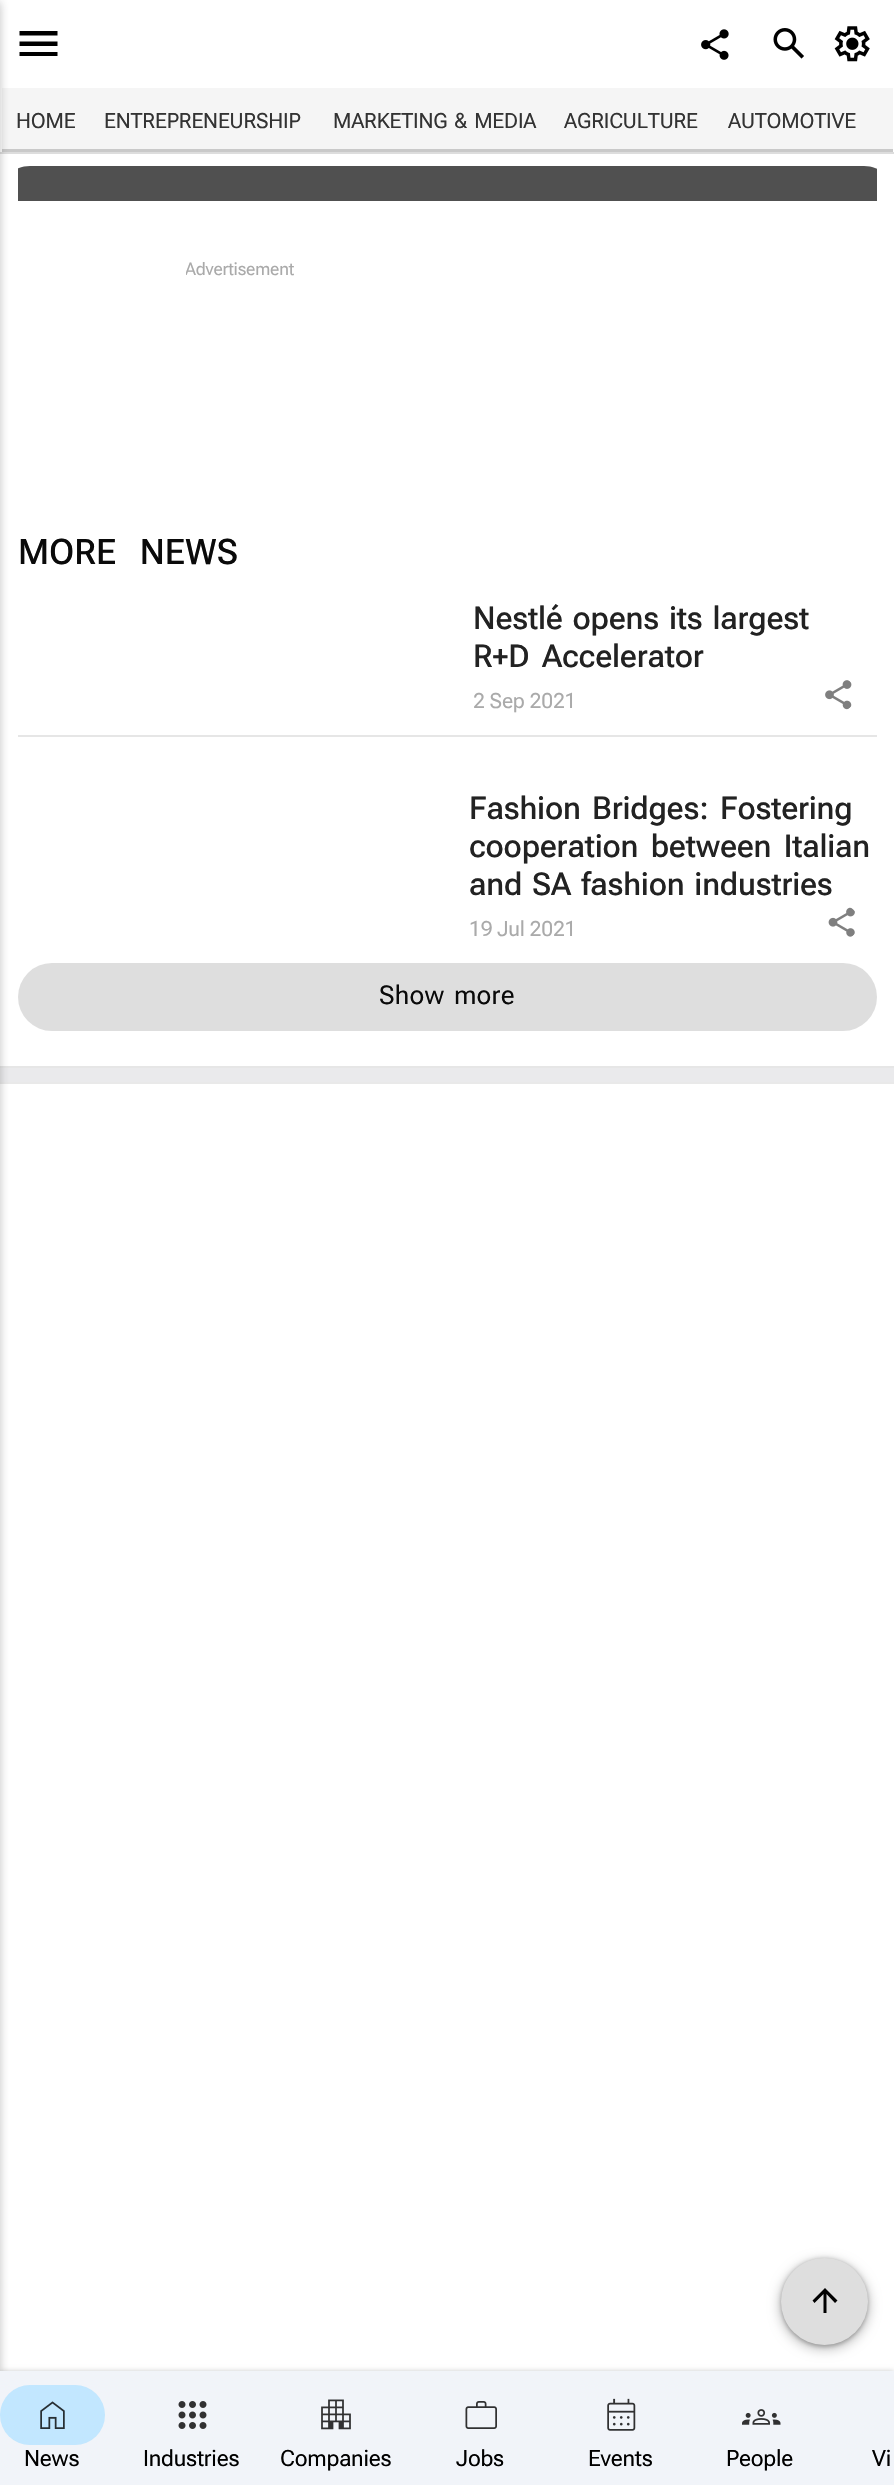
void draw(SkCanvas* canvas) {
	SkPaint paint;
	paint.setAntiAlias(true);
	auto spacedText = [&](const char* s, float x, float y, const SkFont& font, const SkPaint& ink, float letter, float word) {
		std::vector<SkGlyphID> glyphs(font.countText(s, strlen(s), SkTextEncoding::kUTF8));
		std::vector<float> xs(glyphs.size());
		font.textToGlyphs(s, strlen(s), SkTextEncoding::kUTF8, glyphs);
		font.getXPos(glyphs, xs, x);
		float extra = 0;
		for (size_t i = 0; i < glyphs.size(); i++) {
			xs[i] += extra;
			extra += letter + word * (glyphs[i] == font.unicharToGlyph(' '));
		}
		canvas->drawTextBlob(SkTextBlob::MakeFromPosHGlyphs(glyphs, xs, y, font), 0, 0, ink);
	};
	auto svgPath = [&](const char* data, bool evenOdd = false) {
		SkPath result = *SkParsePath::FromSVGString(data);
		if (evenOdd) result.setFillType(SkPathFillType::kEvenOdd);
		return result;
	};
	canvas->clear(0xffffffff);
	paint.setColor(0xffdddddd);
	canvas->drawRect(SkRect::MakeXYWH(0, 152, 894, 2), paint);
	paint.setColor(0xfff5f5f5);
	canvas->drawRect(SkRect::MakeXYWH(2, 88, 891, 61), paint);
	paint.setColor(0xffc9c9c9);
	canvas->drawRect(SkRect::MakeXYWH(2, 149, 891, 3), paint);
	paint.setColor(0xffeaeaec);
	canvas->drawRect(SkRect::MakeXYWH(0, 1068, 894, 14), paint);
	paint.setColor(0xffe6e6e6);
	canvas->drawRect(SkRect::MakeXYWH(0, 1066, 894, 2), paint);
	paint.setColor(0xffe9e9e9);
	canvas->drawRect(SkRect::MakeXYWH(0, 1082, 894, 2), paint);
	paint.setColor(0x47202124);
	paint.setMaskFilter(SkMaskFilter::MakeBlur(kNormal_SkBlurStyle, 5));
	canvas->drawRect(SkRect::MakeXYWH(-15, 2, 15, 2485), paint);
	paint.setMaskFilter(nullptr);
	paint.setColor(0xff000000);
	canvas->drawPath(svgPath("M19.5 56V52H57.5V56ZM19.5 46V41.5H57.5V46ZM19.5 35.5V31H57.5V35.5Z"), paint);
	canvas->drawImageRect(SkImages::DeferredFromEncodedData(SkData::MakeFromFileName("img1.png")), SkRect::MakeXYWH(701, 29, 28, 31), SkSamplingOptions());
	canvas->drawImageRect(SkImages::DeferredFromEncodedData(SkData::MakeFromFileName("img2.png")), SkRect::MakeXYWH(773, 28, 31, 31), SkSamplingOptions());
	canvas->drawImageRect(SkImages::DeferredFromEncodedData(SkData::MakeFromFileName("img3.png")), SkRect::MakeXYWH(834, 26, 36, 36), SkSamplingOptions());
	SkFont f1(fontMgr->matchFamilyStyle("Roboto Flex", SkFontStyle::Normal()), 21);
	f1.setSubpixel(true);
	paint.setColor(0xff333333);
	spacedText("HOME", 16, 128, f1, paint, -0.2, 0);
	spacedText("ENTREPRENEURSHIP", 104, 128, f1, paint, -0.2, 0);
	spacedText("MARKETING & MEDIA", 333, 128, f1, paint, -0.2, 2);
	spacedText("AGRICULTURE", 564, 128, f1, paint, -0.2, 0);
	spacedText("AUTOMOTIVE", 728, 128, f1, paint, -0.2, 0);
	canvas->save();
	canvas->clipPath(svgPath("M30 166H864C880.5 166 894 179.5 894 196V219H0V196C0 179.5 13.5 166 30 166Z"), true);
	paint.setColor(0xff505050);
	canvas->drawRect(SkRect::MakeXYWH(18, 166, 859, 35), paint);
	canvas->restore();
	canvas->save();
	canvas->clipRect(SkRect::MakeXYWH(186, 0, 525, 464));
	SkFont f2(fontMgr->matchFamilyStyle("Roboto Flex", SkFontStyle::Normal()), 17.5);
	f2.setSubpixel(true);
	paint.setColor(0xffaaaaaa);
	spacedText("Advertisement", 185, 275, f2, paint, -0.2, 0);
	canvas->restore();
	SkFont f3(fontMgr->matchFamilyStyle("Roboto Flex", SkFontStyle(500, SkFontStyle::kNormal_Width, SkFontStyle::kUpright_Slant)), 35);
	f3.setSubpixel(true);
	paint.setColor(0xff0a0a0a);
	spacedText("MORE NEWS", 18, 564, f3, paint, 0, 15);
	paint.setColor(0xffe6e6e6);
	canvas->drawRect(SkRect::MakeXYWH(18, 735, 859, 2), paint);
	SkFont f4(fontMgr->matchFamilyStyle("Roboto Flex", SkFontStyle(500, SkFontStyle::kNormal_Width, SkFontStyle::kUpright_Slant)), 31.5);
	f4.setSubpixel(true);
	paint.setColor(0xff222222);
	spacedText("Nestlé opens its largest", 473, 629, f4, paint, -0.2, 2.5);
	spacedText("R+D Accelerator", 473, 667, f4, paint, -0.2, 5);
	paint.setColor(0xffaaaaaa);
	spacedText("2 Sep 2021", 473, 708, f1, paint, -0.2, 0);
	canvas->drawImageRect(SkImages::DeferredFromEncodedData(SkData::MakeFromFileName("img4.png")), SkRect::MakeXYWH(825, 680, 27, 30), SkSamplingOptions());
	paint.setColor(0xff222222);
	spacedText("Fashion Bridges: Fostering", 469, 819, f4, paint, -0.2, 4);
	spacedText("cooperation between Italian", 469, 857, f4, paint, -0.2, 5);
	spacedText("and SA fashion industries", 469, 895, f4, paint, -0.2, 2.5);
	paint.setColor(0xffaaaaaa);
	spacedText("19 Jul 2021", 469, 936, f1, paint, -0.2, 0);
	canvas->drawImageRect(SkImages::DeferredFromEncodedData(SkData::MakeFromFileName("img5.png")), SkRect::MakeXYWH(828, 907, 27, 30), SkSamplingOptions());
	paint.setColor(0xffdedede);
	canvas->drawRoundRect(SkRect::MakeXYWH(18, 963, 859, 68), 34, 34, paint);
	SkFont f5(fontMgr->matchFamilyStyle("Roboto Flex", SkFontStyle::Normal()), 26);
	f5.setSubpixel(true);
	paint.setColor(0xff0a0a0a);
	spacedText("Show more", 379, 1004, f5, paint, 0.25, 3);
	paint.setColor(0x4d000000);
	paint.setMaskFilter(SkMaskFilter::MakeBlur(kNormal_SkBlurStyle, 2));
	canvas->drawRoundRect(SkRect::MakeXYWH(781, 2259, 87, 88), 43.5, 43.5, paint);
	paint.setMaskFilter(nullptr);
	paint.setColor(0x26000000);
	paint.setMaskFilter(SkMaskFilter::MakeBlur(kNormal_SkBlurStyle, 5));
	canvas->drawRoundRect(SkRect::MakeXYWH(777, 2258, 95, 94), 47, 47, paint);
	paint.setMaskFilter(nullptr);
	paint.setColor(0xffdedede);
	canvas->drawCircle(824.5, 2301.5, 43.5, paint);
	paint.setColor(0xff000000);
	canvas->drawPath(svgPath("M823.5 2294L814.5 2303L812.5 2300.5L825 2288L837.5 2300.5L835 2303L826.5 2294V2313H823.5Z"), paint);
	paint.setColor(0x33000000);
	paint.setMaskFilter(SkMaskFilter::MakeBlur(kNormal_SkBlurStyle, 2.5));
	canvas->drawRect(SkRect::MakeXYWH(0, 2371, 894, 114), paint);
	paint.setMaskFilter(nullptr);
	paint.setColor(0xfff1f4f9);
	canvas->drawRect(SkRect::MakeXYWH(0, 2371, 894, 114), paint);
	paint.setColor(0xffc2e7ff);
	canvas->drawRoundRect(SkRect::MakeXYWH(0, 2385, 105, 60), 30, 30, paint);
	canvas->drawImageRect(SkImages::DeferredFromEncodedData(SkData::MakeFromFileName("img6.png")), SkRect::MakeXYWH(40, 2401, 25, 28), SkSamplingOptions());
	SkFont f6(fontMgr->matchFamilyStyle("Roboto Flex", SkFontStyle::Normal()), 22.5);
	f6.setSubpixel(true);
	paint.setColor(0xff000000);
	spacedText("News", 24, 2466, f6, paint, -0.2, 0);
	canvas->drawImageRect(SkImages::DeferredFromEncodedData(SkData::MakeFromFileName("img7.png")), SkRect::MakeXYWH(178, 2401, 29, 28), SkSamplingOptions());
	spacedText("Industries", 143, 2466, f6, paint, -0.2, 0);
	canvas->drawImageRect(SkImages::DeferredFromEncodedData(SkData::MakeFromFileName("img8.png")), SkRect::MakeXYWH(321, 2399, 30, 31), SkSamplingOptions());
	spacedText("Companies", 280, 2466, f6, paint, -0.2, 0);
	canvas->drawImageRect(SkImages::DeferredFromEncodedData(SkData::MakeFromFileName("img9.png")), SkRect::MakeXYWH(465, 2401, 32, 28), SkSamplingOptions());
	spacedText("Jobs", 456, 2466, f6, paint, -0.2, 0);
	canvas->drawImageRect(SkImages::DeferredFromEncodedData(SkData::MakeFromFileName("img10.png")), SkRect::MakeXYWH(607, 2398, 29, 33), SkSamplingOptions());
	spacedText("Events", 588, 2466, f6, paint, -0.2, 0);
	canvas->drawImageRect(SkImages::DeferredFromEncodedData(SkData::MakeFromFileName("img11.png")), SkRect::MakeXYWH(742, 2409, 39, 16), SkSamplingOptions());
	spacedText("People", 726, 2466, f6, paint, -0.2, 0);
	spacedText("Vi", 872, 2466, f6, paint, -0.2, 0);
}
